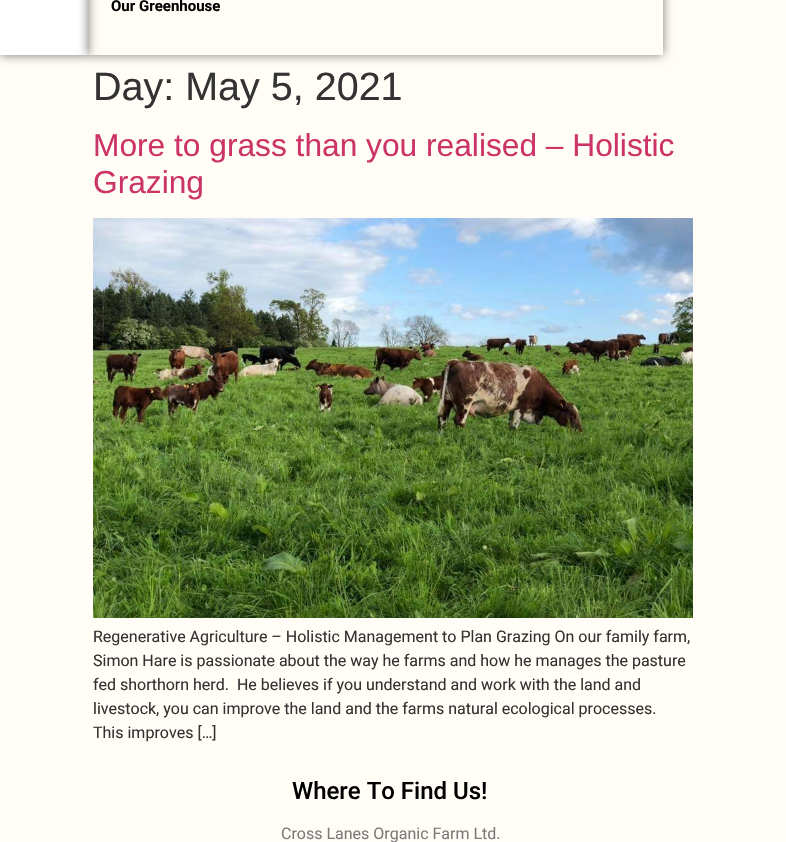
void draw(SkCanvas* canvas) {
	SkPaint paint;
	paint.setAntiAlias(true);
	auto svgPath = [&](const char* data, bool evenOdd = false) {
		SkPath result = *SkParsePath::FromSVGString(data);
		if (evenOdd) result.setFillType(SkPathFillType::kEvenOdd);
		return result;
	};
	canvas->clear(0xfffffdf5);
	paint.setColor(0x8a000000);
	paint.setMaskFilter(SkMaskFilter::MakeBlur(kNormal_SkBlurStyle, 5));
	canvas->drawRect(SkRect::MakeXYWH(0, -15, 88, 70), paint);
	paint.setMaskFilter(nullptr);
	paint.setColor(0xffffffff);
	canvas->drawRect(SkRect::MakeXYWH(0, 0, 88, 55), paint);
	canvas->save();
	canvas->clipPath(svgPath("M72 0H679V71H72ZM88-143H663V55H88Z", true), true);
	paint.setColor(0x80000000);
	paint.setMaskFilter(SkMaskFilter::MakeBlur(kNormal_SkBlurStyle, 5));
	canvas->drawRect(SkRect::MakeXYWH(88, -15, 575, 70), paint);
	paint.setMaskFilter(nullptr);
	canvas->restore();
	SkFont f1(fontMgr->matchFamilyStyle("Roboto", SkFontStyle::Bold()), 15);
	f1.setSubpixel(true);
	paint.setColor(0xff000000);
	canvas->drawString("Our Greenhouse", 111, 11, f1, paint);
	SkFont f2(fontMgr->matchFamilyStyle("Liberation Sans", SkFontStyle::Normal()), 39.5);
	f2.setSubpixel(true);
	paint.setColor(0xff333333);
	canvas->drawString("Day: May 5, 2021", 93, 100, f2, paint);
	SkFont f3(fontMgr->matchFamilyStyle("Liberation Sans", SkFontStyle::Normal()), 31.7);
	f3.setSubpixel(true);
	paint.setColor(0xffcc3366);
	canvas->drawString("More to grass than you realised – Holistic", 93, 156, f3, paint);
	canvas->drawString("Grazing", 93, 193, f3, paint);
	canvas->drawImageRect(SkImages::DeferredFromEncodedData(SkData::MakeFromFileName("img1.png")), SkRect::MakeXYWH(93, 218, 600, 400), SkSamplingOptions());
	SkFont f4(fontMgr->matchFamilyStyle("Roboto", SkFontStyle::Normal()), 16);
	f4.setSubpixel(true);
	paint.setColor(0xff333333);
	canvas->drawString("Regenerative Agriculture – Holistic Management to Plan Grazing On our family farm,", 93, 642, f4, paint);
	canvas->drawString("Simon Hare is passionate about the way he farms and how he manages the pasture", 93, 666, f4, paint);
	canvas->drawString("fed shorthorn herd.  He believes if you understand and work with the land and", 93, 690, f4, paint);
	canvas->drawString("livestock, you can improve the land and the farms natural ecological processes.", 93, 714, f4, paint);
	canvas->drawString("This improves […]", 93, 738, f4, paint);
	SkFont f5(fontMgr->matchFamilyStyle("Roboto", SkFontStyle(500, SkFontStyle::kNormal_Width, SkFontStyle::kUpright_Slant)), 24);
	f5.setSubpixel(true);
	paint.setColor(0xff000000);
	canvas->drawString("Where To Find Us!", 292, 799, f5, paint);
	paint.setColor(0xff7a7a7a);
	canvas->drawString("Cross Lanes Organic Farm Ltd.", 281, 839, f4, paint);
}
